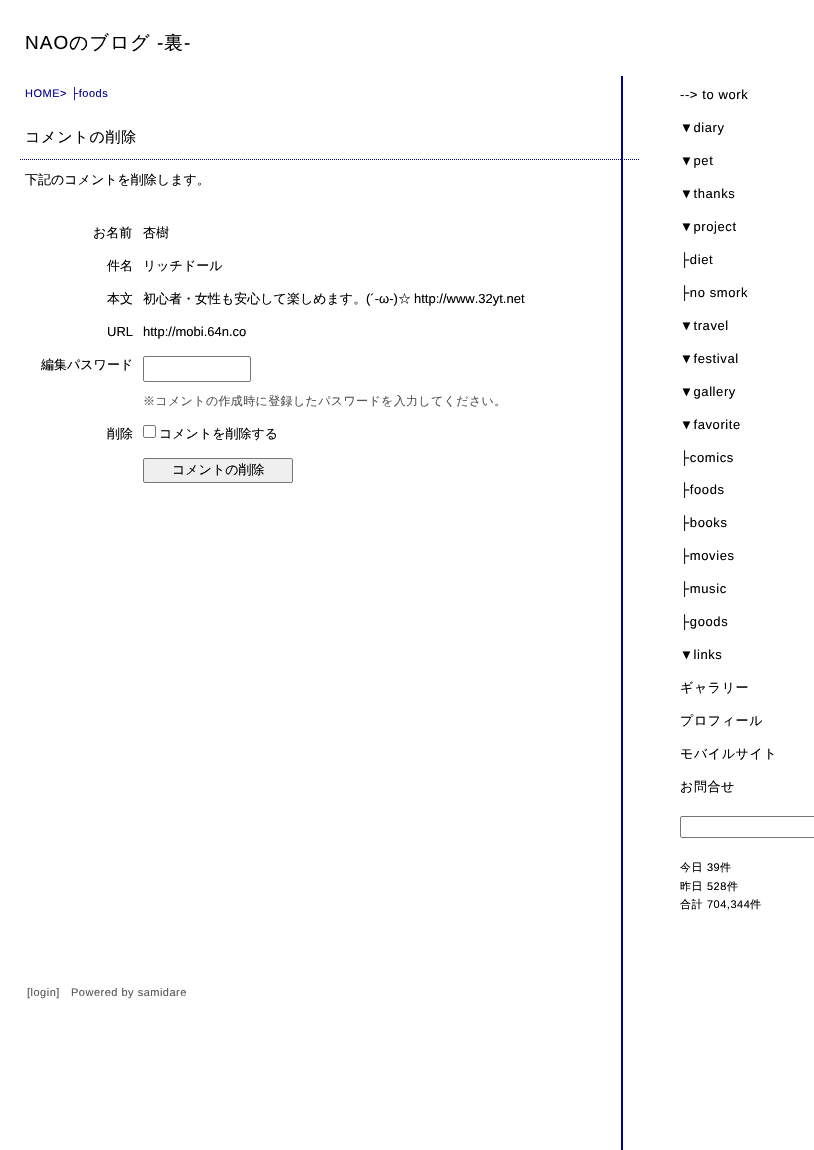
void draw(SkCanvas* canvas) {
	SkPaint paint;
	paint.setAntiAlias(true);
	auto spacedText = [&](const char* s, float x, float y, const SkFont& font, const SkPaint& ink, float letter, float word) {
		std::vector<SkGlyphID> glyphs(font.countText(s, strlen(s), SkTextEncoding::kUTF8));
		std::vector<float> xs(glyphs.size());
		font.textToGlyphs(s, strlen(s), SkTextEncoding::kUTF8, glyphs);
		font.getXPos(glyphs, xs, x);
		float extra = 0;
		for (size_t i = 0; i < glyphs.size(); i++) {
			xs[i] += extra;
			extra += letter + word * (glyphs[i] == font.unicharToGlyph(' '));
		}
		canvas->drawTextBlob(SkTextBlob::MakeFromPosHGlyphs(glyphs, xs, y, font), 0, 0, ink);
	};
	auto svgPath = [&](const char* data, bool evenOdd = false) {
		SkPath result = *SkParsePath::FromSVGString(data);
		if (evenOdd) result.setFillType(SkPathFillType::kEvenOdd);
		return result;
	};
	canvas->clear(0xffffffff);
	paint.setColor(0xff000099);
	canvas->drawRect(SkRect::MakeXYWH(621, 76, 2, 1074), paint);
	SkFont f1(fontMgr->matchFamilyStyle("Liberation Sans", SkFontStyle::Normal()), 19);
	f1.setSubpixel(true);
	paint.setColor(0xff000000);
	spacedText("NAO", 25, 49, f1, paint, 1, 0);
	SkFont f2(fontMgr->matchFamilyStyle("WenQuanYi Zen Hei", SkFontStyle(500, SkFontStyle::kNormal_Width, SkFontStyle::kUpright_Slant)), 19);
	f2.setSubpixel(true);
	spacedText("のブログ", 69, 49, f2, paint, 1, 0);
	spacedText("-", 157, 49, f1, paint, 1, 0);
	spacedText("裏", 164, 49, f2, paint, 1, 0);
	spacedText("-", 184, 49, f1, paint, 1, 0);
	SkFont f3(fontMgr->matchFamilyStyle("Liberation Sans", SkFontStyle::Normal()), 11);
	f3.setSubpixel(true);
	paint.setColor(0xff000099);
	spacedText("HOME> ├foods", 25, 97, f3, paint, 0.5, 0);
	paint.setStroke(true);
	paint.setStrokeWidth(1);
	paint.setPathEffect(SkDashPathEffect::Make({{1, 1}}, 0));
	canvas->drawPath(svgPath("M20 159.5H640"), paint);
	paint.setPathEffect(nullptr);
	SkFont f4(fontMgr->matchFamilyStyle("WenQuanYi Zen Hei", SkFontStyle(500, SkFontStyle::kNormal_Width, SkFontStyle::kUpright_Slant)), 15);
	f4.setSubpixel(true);
	paint.setStroke(false);
	paint.setColor(0xff000000);
	spacedText("コメントの削除", 25, 142, f4, paint, 0.75, 0);
	SkFont f5(fontMgr->matchFamilyStyle("WenQuanYi Zen Hei", SkFontStyle(500, SkFontStyle::kNormal_Width, SkFontStyle::kUpright_Slant)), 13);
	f5.setSubpixel(true);
	canvas->drawString("下記のコメントを削除します。", 25, 184, f5, paint);
	canvas->drawString("お名前", 93, 237, f5, paint);
	canvas->drawString("杏樹", 143, 237, f5, paint);
	canvas->drawString("件名", 107, 270, f5, paint);
	canvas->drawString("リッチドール", 143, 270, f5, paint);
	canvas->drawString("本文", 107, 303, f5, paint);
	canvas->drawString("初心者・女性も安心して楽しめます。", 143, 303, f5, paint);
	SkFont f6(fontMgr->matchFamilyStyle("Liberation Sans", SkFontStyle::Normal()), 13);
	f6.setSubpixel(true);
	canvas->drawString("(´-ω-)", 366, 303, f6, paint);
	canvas->drawString("☆", 398, 303, f5, paint);
	canvas->drawString("http://www.32yt.net", 414, 303, f6, paint);
	canvas->drawString("URL", 107, 336, f6, paint);
	canvas->drawString("http://mobi.64n.co", 143, 336, f6, paint);
	canvas->drawString("編集パスワード", 41, 369, f5, paint);
	paint.setStroke(true);
	paint.setColor(0xff767676);
	canvas->drawRoundRect(SkRect::MakeXYWH(143.5, 356.5, 107, 25), 1.5, 1.5, paint);
	SkFont f7(fontMgr->matchFamilyStyle("WenQuanYi Zen Hei", SkFontStyle(500, SkFontStyle::kNormal_Width, SkFontStyle::kUpright_Slant)), 12);
	f7.setSubpixel(true);
	paint.setStroke(false);
	paint.setColor(0xff555555);
	spacedText("※コメントの作成時に登録したパスワードを入力してください。", 143, 405, f7, paint, 0.35, 0);
	paint.setColor(0xff000000);
	canvas->drawString("削除", 107, 438, f5, paint);
	paint.setStroke(true);
	paint.setColor(0xff767676);
	canvas->drawRoundRect(SkRect::MakeXYWH(143.5, 425.5, 12, 12), 1.5, 1.5, paint);
	paint.setStroke(false);
	paint.setColor(0xff000000);
	canvas->drawString("コメントを削除する", 159, 438, f5, paint);
	paint.setColor(0xffefefef);
	canvas->drawRoundRect(SkRect::MakeXYWH(143.5, 458.5, 149, 24), 1.5, 1.5, paint);
	paint.setStroke(true);
	paint.setColor(0xff767676);
	canvas->drawRoundRect(SkRect::MakeXYWH(143.5, 458.5, 149, 24), 1.5, 1.5, paint);
	paint.setStroke(false);
	paint.setColor(0xff000000);
	canvas->drawString("コメントの削除", 172, 474, f5, paint);
	spacedText("--> to work", 680, 99, f6, paint, 0.6, 0);
	spacedText("▼diary", 680, 132, f6, paint, 0.6, 0);
	spacedText("▼pet", 680, 165, f6, paint, 0.6, 0);
	spacedText("▼thanks", 680, 198, f6, paint, 0.6, 0);
	spacedText("▼project", 680, 231, f6, paint, 0.6, 0);
	spacedText("├diet", 680, 264, f6, paint, 0.6, 0);
	spacedText("├no smork", 680, 297, f6, paint, 0.6, 0);
	spacedText("▼travel", 680, 330, f6, paint, 0.6, 0);
	spacedText("▼festival", 680, 363, f6, paint, 0.6, 0);
	spacedText("▼gallery", 680, 396, f6, paint, 0.6, 0);
	spacedText("▼favorite", 680, 429, f6, paint, 0.6, 0);
	spacedText("├comics", 680, 462, f6, paint, 0.6, 0);
	spacedText("├foods", 680, 494, f6, paint, 0.6, 0);
	spacedText("├books", 680, 527, f6, paint, 0.6, 0);
	spacedText("├movies", 680, 560, f6, paint, 0.6, 0);
	spacedText("├music", 680, 593, f6, paint, 0.6, 0);
	spacedText("├goods", 680, 626, f6, paint, 0.6, 0);
	spacedText("▼links", 680, 659, f6, paint, 0.6, 0);
	spacedText("ギャラリー", 680, 692, f5, paint, 0.6, 0);
	spacedText("プロフィール", 680, 725, f5, paint, 0.6, 0);
	spacedText("モバイルサイト", 680, 758, f5, paint, 0.6, 0);
	spacedText("お問合せ", 680, 791, f5, paint, 0.6, 0);
	paint.setStroke(true);
	paint.setColor(0xff767676);
	canvas->drawRoundRect(SkRect::MakeXYWH(680.5, 816.5, 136, 21), 1.5, 1.5, paint);
	SkFont f8(fontMgr->matchFamilyStyle("WenQuanYi Zen Hei", SkFontStyle(500, SkFontStyle::kNormal_Width, SkFontStyle::kUpright_Slant)), 11);
	f8.setSubpixel(true);
	paint.setStroke(false);
	paint.setColor(0xff000000);
	spacedText("今日", 680, 871, f8, paint, 0.5, 0);
	spacedText("39", 707, 871, f3, paint, 0.5, 0);
	spacedText("件", 720, 871, f8, paint, 0.5, 0);
	spacedText("昨日", 680, 890, f8, paint, 0.5, 0);
	spacedText("528", 707, 890, f3, paint, 0.5, 0);
	spacedText("件", 727, 890, f8, paint, 0.5, 0);
	spacedText("合計", 680, 908, f8, paint, 0.5, 0);
	spacedText("704,344", 707, 908, f3, paint, 0.5, 0);
	spacedText("件", 750, 908, f8, paint, 0.5, 0);
	paint.setColor(0xff555555);
	spacedText("[login]", 27, 996, f3, paint, 0.5, 0);
	spacedText("Powered by samidare", 71, 996, f3, paint, 0.5, 0);
}
